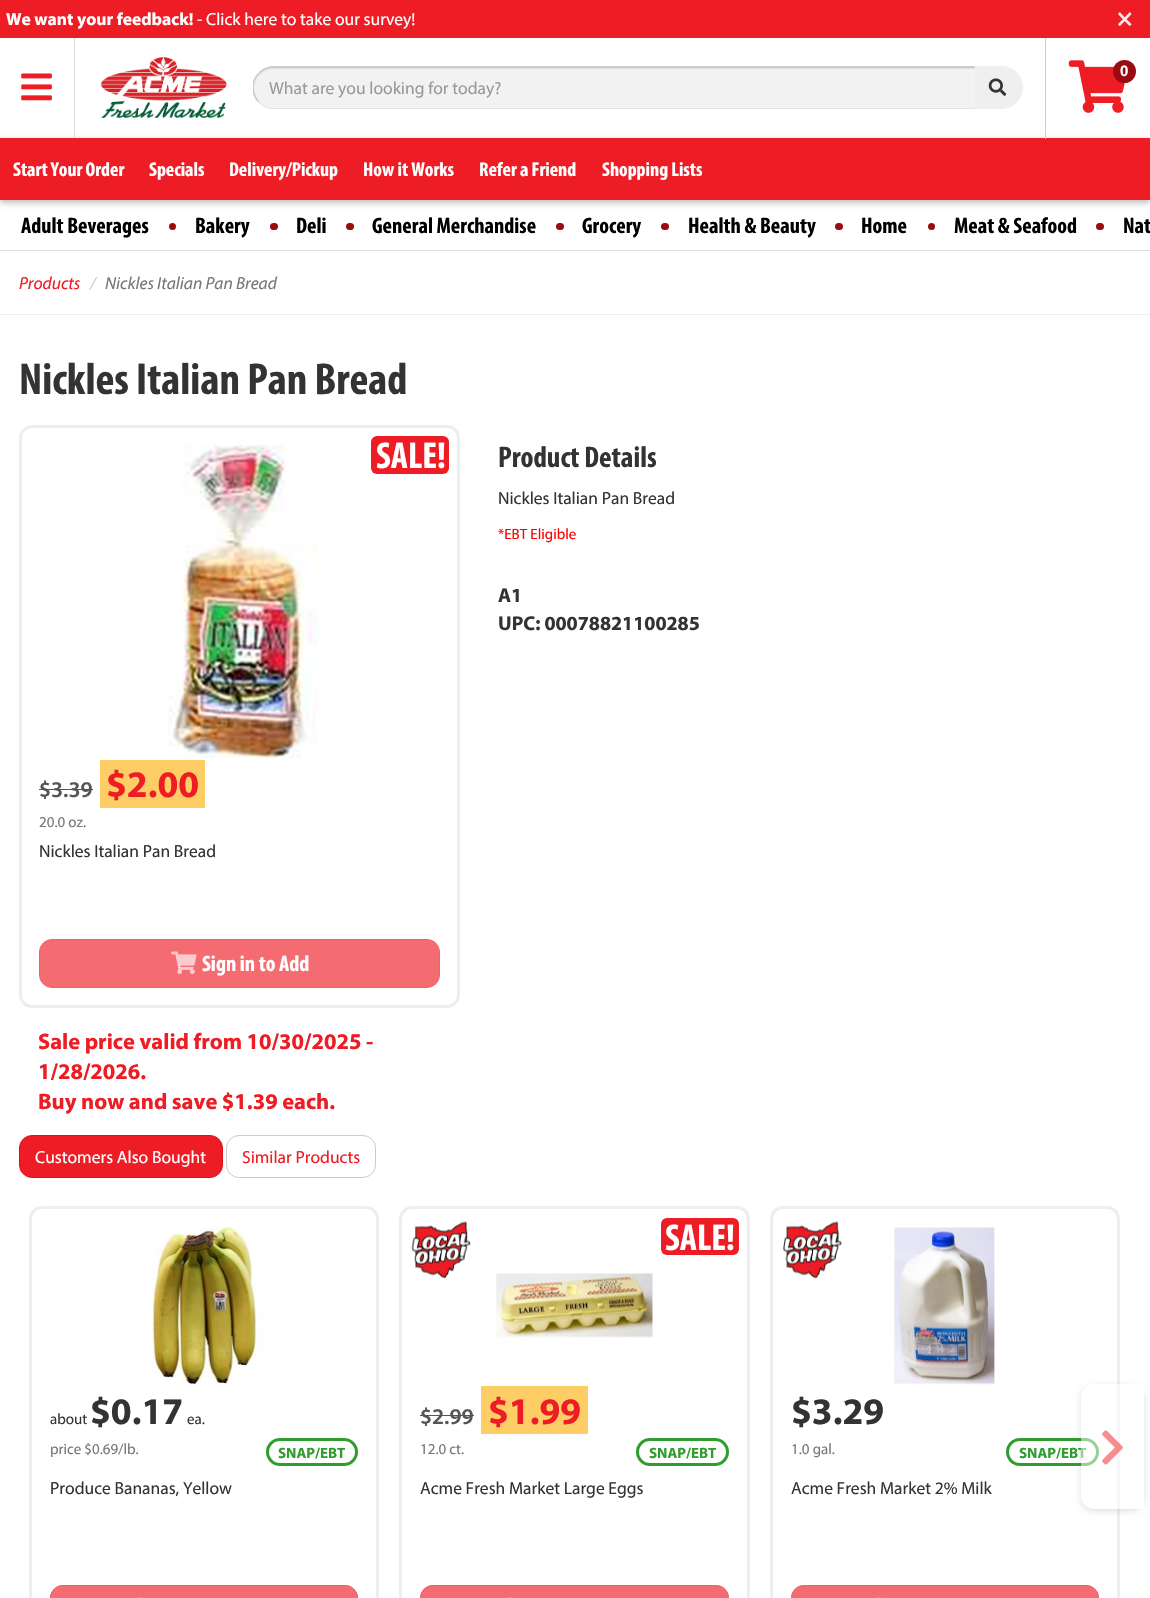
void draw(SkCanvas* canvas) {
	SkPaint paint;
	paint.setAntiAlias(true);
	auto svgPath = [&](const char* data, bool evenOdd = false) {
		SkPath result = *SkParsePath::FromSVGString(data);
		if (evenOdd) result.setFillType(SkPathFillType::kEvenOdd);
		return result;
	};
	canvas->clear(0xffffffff);
	paint.setColor(0xffee1c24);
	canvas->drawRect(SkRect::MakeXYWH(0, 0, 1150, 38), paint);
	SkFont f1(fontMgr->matchFamilyStyle("Myriad", SkFontStyle::Bold()), 17.5);
	f1.setSubpixel(true);
	paint.setColor(0xffffffff);
	canvas->drawString("We want your feedback!", 6, 25, f1, paint);
	SkFont f2(fontMgr->matchFamilyStyle("Myriad", SkFontStyle::Normal()), 17.5);
	f2.setSubpixel(true);
	canvas->drawString("- Click here to take our survey!", 197, 25, f2, paint);
	SkFont f3(fontMgr->matchFamilyStyle("Myriad", SkFontStyle::Bold()), 26);
	f3.setSubpixel(true);
	paint.setColor(0xfffde8e9);
	canvas->drawString("×", 1117, 26, f3, paint);
	paint.setColor(0x40000000);
	paint.setMaskFilter(SkMaskFilter::MakeBlur(kNormal_SkBlurStyle, 3));
	canvas->drawRect(SkRect::MakeXYWH(0, 140, 1150, 63), paint);
	paint.setMaskFilter(nullptr);
	paint.setColor(0xffdddddd);
	canvas->drawRect(SkRect::MakeXYWH(74, 38, 1, 100), paint);
	canvas->drawImageRect(SkImages::DeferredFromEncodedData(SkData::MakeFromFileName("img1.png")), SkRect::MakeXYWH(21, 73, 31, 28), SkSamplingOptions());
	canvas->drawImageRect(SkImages::DeferredFromEncodedData(SkData::MakeFromFileName("img2.png")), SkRect::MakeXYWH(100, 57, 127, 61), SkSamplingOptions());
	paint.setColor(0xffee1c24);
	canvas->drawRect(SkRect::MakeXYWH(0, 138, 1150, 62), paint);
	paint.setColor(0xffcccccc);
	canvas->drawRect(SkRect::MakeXYWH(1045, 38, 1, 101), paint);
	canvas->drawImageRect(SkImages::DeferredFromEncodedData(SkData::MakeFromFileName("img3.png")), SkRect::MakeXYWH(1068, 60, 57, 53), SkSamplingOptions());
	paint.setColor(0xff990b11);
	canvas->drawCircle(1124.5, 71.5, 11.5, paint);
	SkFont f4(fontMgr->matchFamilyStyle("Liberation Sans", SkFontStyle::Bold()), 15);
	f4.setSubpixel(true);
	paint.setColor(0xffffffff);
	canvas->drawString("0", 1120, 76, f4, paint);
	paint.setColor(0xfff2f2f2);
	canvas->drawPath(svgPath("M274.5 66H976V109H274.5C262.5 109 253 99.5 253 87.5C253 75.5 262.5 66 274.5 66Z"), paint);
	paint.setColor(0xffe0e0e0);
	canvas->drawPath(svgPath("M274 69H975V68H274C263 68 254 77 254 89C254 78 263 69 274 69Z"), paint);
	paint.setColor(0xffcccccc);
	canvas->drawPath(svgPath("M274 68C268 68 263 70 260 74L259 72C262 69 266 67 271 66H976L974 68Z"), paint);
	canvas->drawPath(svgPath("M976 66V108H975V68H974Z"), paint);
	paint.setColor(0xffe2e2e2);
	canvas->drawPath(svgPath("M271 109C266 108 262 106 259 103L260 102C263 106 268 108 274 108H975L976 109Z"), paint);
	canvas->save();
	canvas->clipRect(SkRect::MakeXYWH(253, 38, 770, 71));
	paint.setColor(0xffcccccc);
	canvas->drawPath(svgPath("M252.5 83.5C253.5 79 255.5 75.5 258.5 72.5L260 73.5C252 81 252 94 259.5 101.5L258.5 102.5C255.5 100 253.5 96 252.5 92.5Z"), paint);
	canvas->restore();
	paint.setColor(0xff999999);
	canvas->drawString("What are you looking for today?", 269, 94, f2, paint);
	paint.setColor(0xffefefef);
	canvas->drawPath(svgPath("M975 66H1001.5C1013.5 66 1023 75.5 1023 87.5C1023 99.5 1013.5 109 1001.5 109H975Z"), paint);
	canvas->drawImageRect(SkImages::DeferredFromEncodedData(SkData::MakeFromFileName("img4.png")), SkRect::MakeXYWH(988, 78, 19, 18), SkSamplingOptions());
	SkFont f5(fontMgr->matchFamilyStyle("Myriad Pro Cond", SkFontStyle::Bold()), 20);
	f5.setSubpixel(true);
	paint.setColor(0xffffffff);
	canvas->drawString("Start Your Order", 13, 176, f5, paint);
	canvas->drawString("Specials", 149, 176, f5, paint);
	canvas->drawString("Delivery/Pickup", 229, 176, f5, paint);
	canvas->drawString("How it Works", 363, 176, f5, paint);
	canvas->drawString("Refer a Friend", 479, 176, f5, paint);
	canvas->drawString("Shopping Lists", 602, 176, f5, paint);
	SkFont f6(fontMgr->matchFamilyStyle("Myriad Pro Cond", SkFontStyle::Bold()), 22.5);
	f6.setSubpixel(true);
	paint.setColor(0xff000000);
	canvas->drawString("Adult Beverages", 21, 233, f6, paint);
	paint.setColor(0xff990b11);
	canvas->drawCircle(172.5, 226.5, 3.5, paint);
	paint.setColor(0xff000000);
	canvas->drawString("Bakery", 195, 233, f6, paint);
	paint.setColor(0xff990b11);
	canvas->drawRoundRect(SkRect::MakeXYWH(270, 223, 8, 7), 3.5, 3.5, paint);
	paint.setColor(0xff000000);
	canvas->drawString("Deli", 296, 233, f6, paint);
	paint.setColor(0xff990b11);
	canvas->drawRoundRect(SkRect::MakeXYWH(346, 223, 8, 7), 3.5, 3.5, paint);
	paint.setColor(0xff000000);
	canvas->drawString("General Merchandise", 372, 233, f6, paint);
	paint.setColor(0xff990b11);
	canvas->drawRoundRect(SkRect::MakeXYWH(556, 223, 8, 7), 3.5, 3.5, paint);
	paint.setColor(0xff000000);
	canvas->drawString("Grocery", 582, 233, f6, paint);
	paint.setColor(0xff990b11);
	canvas->drawRoundRect(SkRect::MakeXYWH(661, 223, 8, 7), 3.5, 3.5, paint);
	paint.setColor(0xff000000);
	canvas->drawString("Health & Beauty", 688, 233, f6, paint);
	paint.setColor(0xff990b11);
	canvas->drawRoundRect(SkRect::MakeXYWH(835, 223, 8, 7), 3.5, 3.5, paint);
	paint.setColor(0xff000000);
	canvas->drawString("Home", 861, 233, f6, paint);
	paint.setColor(0xff990b11);
	canvas->drawCircle(931.5, 226.5, 3.5, paint);
	paint.setColor(0xff000000);
	canvas->drawString("Meat & Seafood", 954, 233, f6, paint);
	paint.setColor(0xff990b11);
	canvas->drawRoundRect(SkRect::MakeXYWH(1096, 223, 8, 7), 3.5, 3.5, paint);
	paint.setColor(0xff000000);
	canvas->drawString("Nat", 1123, 233, f6, paint);
	paint.setColor(0xffdddddd);
	canvas->drawRect(SkRect::MakeXYWH(0, 250, 1150, 1), paint);
	paint.setColor(0xffeeeeee);
	canvas->drawRect(SkRect::MakeXYWH(0, 314, 1150, 1), paint);
	SkFont f7(fontMgr->matchFamilyStyle("Myriad", SkFontStyle::Italic()), 17.5);
	f7.setSubpixel(true);
	paint.setColor(0xffee1c24);
	canvas->drawString("Products", 19, 289, f7, paint);
	paint.setColor(0xffcccccc);
	canvas->drawString("/", 90, 289, f7, paint);
	paint.setColor(0xff777777);
	canvas->drawString("Nickles Italian Pan Bread", 105, 289, f7, paint);
	SkFont f8(fontMgr->matchFamilyStyle("Myriad Pro Cond", SkFontStyle::Bold()), 45);
	f8.setSubpixel(true);
	paint.setColor(0xff333333);
	canvas->drawString("Nickles Italian Pan Bread", 19, 394, f8, paint);
	paint.setStroke(true);
	paint.setStrokeWidth(3);
	paint.setColor(0xffeeeeee);
	canvas->drawRoundRect(SkRect::MakeXYWH(20.5, 426.5, 438, 580), 11.5, 11.5, paint);
	canvas->drawImageRect(SkImages::DeferredFromEncodedData(SkData::MakeFromFileName("img5.png")), SkRect::MakeXYWH(167, 445, 151, 313), SkSamplingOptions());
	paint.setStroke(false);
	paint.setColor(0xffee1c24);
	canvas->drawRoundRect(SkRect::MakeXYWH(371, 436, 78, 38), 6, 6, paint);
	SkFont f9(fontMgr->matchFamilyStyle("Myriad Pro Cond", SkFontStyle::Bold()), 37.5);
	f9.setSubpixel(true);
	paint.setColor(0xffffffff);
	canvas->drawString("SALE!", 376, 468, f9, paint);
	SkFont f10(fontMgr->matchFamilyStyle("Myriad", SkFontStyle(600, SkFontStyle::kNormal_Width, SkFontStyle::kUpright_Slant)), 22.5);
	f10.setSubpixel(true);
	paint.setColor(0xff555555);
	canvas->drawString("$3.39", 39, 797, f10, paint);
	canvas->drawRect(SkRect::MakeXYWH(39, 789, 54, 1), paint);
	paint.setColor(0xffffcd66);
	canvas->drawRect(SkRect::MakeXYWH(100, 760, 105, 48), paint);
	SkFont f11(fontMgr->matchFamilyStyle("Myriad", SkFontStyle::Bold()), 37.5);
	f11.setSubpixel(true);
	paint.setColor(0xffee1c24);
	canvas->drawString("$2.00", 106, 797, f11, paint);
	SkFont f12(fontMgr->matchFamilyStyle("Myriad", SkFontStyle::Normal()), 15);
	f12.setSubpixel(true);
	paint.setColor(0xff777777);
	canvas->drawString("20.0 oz.", 39, 827, f12, paint);
	paint.setColor(0xff333333);
	canvas->drawString("Nickles Italian Pan Bread", 39, 857, f2, paint);
	paint.setColor(0xfff46b71);
	canvas->drawRoundRect(SkRect::MakeXYWH(39.5, 939.5, 400, 48), 12.5, 12.5, paint);
	paint.setStroke(true);
	paint.setStrokeWidth(1);
	paint.setColor(0xffeb646a);
	canvas->drawRoundRect(SkRect::MakeXYWH(39.5, 939.5, 400, 48), 12.5, 12.5, paint);
	canvas->drawImageRect(SkImages::DeferredFromEncodedData(SkData::MakeFromFileName("img6.png")), SkRect::MakeXYWH(171, 951, 26, 23), SkSamplingOptions());
	paint.setStroke(false);
	paint.setColor(0xffffffff);
	canvas->drawString("Sign in to Add", 202, 971, f6, paint);
	SkFont f13(fontMgr->matchFamilyStyle("Myriad", SkFontStyle::Bold()), 22.5);
	f13.setSubpixel(true);
	paint.setColor(0xffee1c24);
	canvas->drawString("Sale price valid from 10/30/2025 -", 38, 1049, f13, paint);
	canvas->drawString("1/28/2026.", 38, 1079, f13, paint);
	canvas->drawString("Buy now and save $1.39 each.", 38, 1109, f13, paint);
	SkFont f14(fontMgr->matchFamilyStyle("Myriad Pro Cond", SkFontStyle::Bold()), 30);
	f14.setSubpixel(true);
	paint.setColor(0xff333333);
	canvas->drawString("Product Details", 498, 467, f14, paint);
	canvas->drawString("Nickles Italian Pan Bread", 498, 504, f2, paint);
	paint.setColor(0xffff0000);
	canvas->drawString("*EBT Eligible", 498, 539, f12, paint);
	SkFont f15(fontMgr->matchFamilyStyle("Myriad", SkFontStyle::Bold()), 20);
	f15.setSubpixel(true);
	paint.setColor(0xff333333);
	canvas->drawString("A1", 498, 602, f15, paint);
	canvas->drawString("UPC: 00078821100285", 498, 630, f15, paint);
	paint.setColor(0xffee1c24);
	canvas->drawRoundRect(SkRect::MakeXYWH(19.5, 1135.5, 203, 42), 12.5, 12.5, paint);
	paint.setStroke(true);
	paint.setColor(0xffe01119);
	canvas->drawRoundRect(SkRect::MakeXYWH(19.5, 1135.5, 203, 42), 12.5, 12.5, paint);
	paint.setStroke(false);
	paint.setColor(0xffffffff);
	canvas->drawString("Customers Also Bought", 35, 1163, f2, paint);
	paint.setStroke(true);
	paint.setColor(0xffcccccc);
	canvas->drawRoundRect(SkRect::MakeXYWH(226.5, 1135.5, 149, 42), 12.5, 12.5, paint);
	paint.setStroke(false);
	paint.setColor(0xffee1c24);
	canvas->drawString("Similar Products", 242, 1163, f2, paint);
	paint.setStroke(true);
	paint.setStrokeWidth(3);
	paint.setColor(0xffeeeeee);
	canvas->drawRoundRect(SkRect::MakeXYWH(30.5, 1207.5, 347, 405), 11.5, 11.5, paint);
	canvas->drawImageRect(SkImages::DeferredFromEncodedData(SkData::MakeFromFileName("img7.png")), SkRect::MakeXYWH(151, 1227, 113, 157), SkSamplingOptions());
	paint.setStroke(false);
	paint.setColor(0xff333333);
	canvas->drawString("about", 50, 1424, f12, paint);
	canvas->drawString("$0.17", 90, 1424, f11, paint);
	canvas->drawString("ea.", 187, 1424, f12, paint);
	paint.setColor(0xff777777);
	canvas->drawString("price $0.69/lb.", 50, 1454, f12, paint);
	paint.setStroke(true);
	paint.setColor(0xff2e9e2e);
	canvas->drawRoundRect(SkRect::MakeXYWH(267.5, 1439.5, 89, 25), 12.5, 12.5, paint);
	SkFont f16(fontMgr->matchFamilyStyle("Myriad", SkFontStyle::Bold()), 15);
	f16.setSubpixel(true);
	paint.setStroke(false);
	canvas->drawString("SNAP/EBT", 278, 1458, f16, paint);
	paint.setColor(0xff333333);
	canvas->drawString("Produce Bananas, Yellow", 50, 1494, f2, paint);
	paint.setColor(0xfff46b71);
	canvas->drawPath(svgPath("M63 1585H345C352 1585 358 1591 358 1598V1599H50V1598C50 1591 56 1585 63 1585Z"), paint);
	paint.setStroke(true);
	paint.setStrokeWidth(1);
	paint.setColor(0xffeb646a);
	canvas->drawRoundRect(SkRect::MakeXYWH(50.5, 1585.5, 307, 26), 12.5, 12.5, paint);
	paint.setStroke(false);
	paint.setColor(0xfff57e83);
	canvas->drawRect(SkRect::MakeXYWH(137, 1597, 5, 1), paint);
	paint.setStroke(true);
	paint.setStrokeWidth(3);
	paint.setColor(0xffeeeeee);
	canvas->drawRoundRect(SkRect::MakeXYWH(400.5, 1207.5, 348, 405), 11.5, 11.5, paint);
	canvas->drawImageRect(SkImages::DeferredFromEncodedData(SkData::MakeFromFileName("img8.png")), SkRect::MakeXYWH(411, 1221, 60, 58), SkSamplingOptions());
	paint.setStroke(false);
	paint.setColor(0xffee1c24);
	canvas->drawRoundRect(SkRect::MakeXYWH(661, 1218, 78, 37), 6, 6, paint);
	paint.setColor(0xffffffff);
	canvas->drawString("SALE!", 665, 1250, f9, paint);
	canvas->drawImageRect(SkImages::DeferredFromEncodedData(SkData::MakeFromFileName("img9.png")), SkRect::MakeXYWH(496, 1273, 157, 67), SkSamplingOptions());
	paint.setColor(0xff555555);
	canvas->drawString("$2.99", 420, 1424, f10, paint);
	canvas->drawRect(SkRect::MakeXYWH(420, 1415, 54, 1), paint);
	paint.setColor(0xffffcd66);
	canvas->drawRect(SkRect::MakeXYWH(481, 1386, 107, 48), paint);
	paint.setColor(0xffee1c24);
	canvas->drawString("$1.99", 488, 1424, f11, paint);
	paint.setColor(0xff777777);
	canvas->drawString("12.0 ct.", 420, 1454, f12, paint);
	paint.setStroke(true);
	paint.setColor(0xff2e9e2e);
	canvas->drawRoundRect(SkRect::MakeXYWH(637.5, 1439.5, 90, 25), 12.5, 12.5, paint);
	paint.setStroke(false);
	canvas->drawString("SNAP/EBT", 649, 1458, f16, paint);
	paint.setColor(0xff333333);
	canvas->drawString("Acme Fresh Market Large Eggs", 420, 1494, f2, paint);
	paint.setColor(0xfff46b71);
	canvas->drawPath(svgPath("M433 1585H716C723 1585 729 1591 729 1598V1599H420V1598C420 1591 426 1585 433 1585Z"), paint);
	paint.setStroke(true);
	paint.setStrokeWidth(1);
	paint.setColor(0xffeb646a);
	canvas->drawRoundRect(SkRect::MakeXYWH(420.5, 1585.5, 308, 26), 12.5, 12.5, paint);
	paint.setStroke(false);
	paint.setColor(0xfff57e83);
	canvas->drawRect(SkRect::MakeXYWH(507, 1597, 5, 1), paint);
	paint.setStroke(true);
	paint.setStrokeWidth(3);
	paint.setColor(0xffeeeeee);
	canvas->drawRoundRect(SkRect::MakeXYWH(771.5, 1207.5, 347, 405), 11.5, 11.5, paint);
	canvas->drawImageRect(SkImages::DeferredFromEncodedData(SkData::MakeFromFileName("img10.png")), SkRect::MakeXYWH(783, 1221, 59, 58), SkSamplingOptions());
	canvas->drawImageRect(SkImages::DeferredFromEncodedData(SkData::MakeFromFileName("img11.png")), SkRect::MakeXYWH(894, 1227, 101, 158), SkSamplingOptions());
	paint.setStroke(false);
	paint.setColor(0xff333333);
	canvas->drawString("$3.29", 791, 1424, f11, paint);
	paint.setColor(0xff777777);
	canvas->drawString("1.0 gal.", 791, 1454, f12, paint);
	paint.setStroke(true);
	paint.setColor(0xff2e9e2e);
	canvas->drawRoundRect(SkRect::MakeXYWH(1007.5, 1439.5, 90, 25), 12.5, 12.5, paint);
	paint.setStroke(false);
	canvas->drawString("SNAP/EBT", 1019, 1458, f16, paint);
	paint.setColor(0xff333333);
	canvas->drawString("Acme Fresh Market 2% Milk", 791, 1494, f2, paint);
	paint.setColor(0xfff46b71);
	canvas->drawPath(svgPath("M804 1585H1086C1093 1585 1099 1591 1099 1598V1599H791V1598C791 1591 797 1585 804 1585Z"), paint);
	paint.setStroke(true);
	paint.setStrokeWidth(1);
	paint.setColor(0xffeb646a);
	canvas->drawRoundRect(SkRect::MakeXYWH(791.5, 1585.5, 307, 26), 12.5, 12.5, paint);
	paint.setStroke(false);
	paint.setColor(0xfff57e83);
	canvas->drawRect(SkRect::MakeXYWH(877, 1597, 5, 1), paint);
	canvas->save();
	canvas->clipPath(svgPath("M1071 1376H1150V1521H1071ZM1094 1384H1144V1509H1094C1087 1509 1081 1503 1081 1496V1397C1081 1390 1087 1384 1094 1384Z", true), true);
	paint.setColor(0x1f000000);
	paint.setMaskFilter(SkMaskFilter::MakeBlur(kNormal_SkBlurStyle, 3));
	canvas->drawRoundRect(SkRect::MakeXYWH(1081, 1386, 63, 125), 13, 13, paint);
	paint.setMaskFilter(nullptr);
	canvas->restore();
	paint.setColor(0x80ffffff);
	canvas->drawPath(svgPath("M1094 1384H1144V1509H1094C1087 1509 1081 1503 1081 1496V1397C1081 1390 1087 1384 1094 1384Z"), paint);
	canvas->drawImageRect(SkImages::DeferredFromEncodedData(SkData::MakeFromFileName("img12.png")), SkRect::MakeXYWH(1102, 1430, 21, 35), SkSamplingOptions());
}
